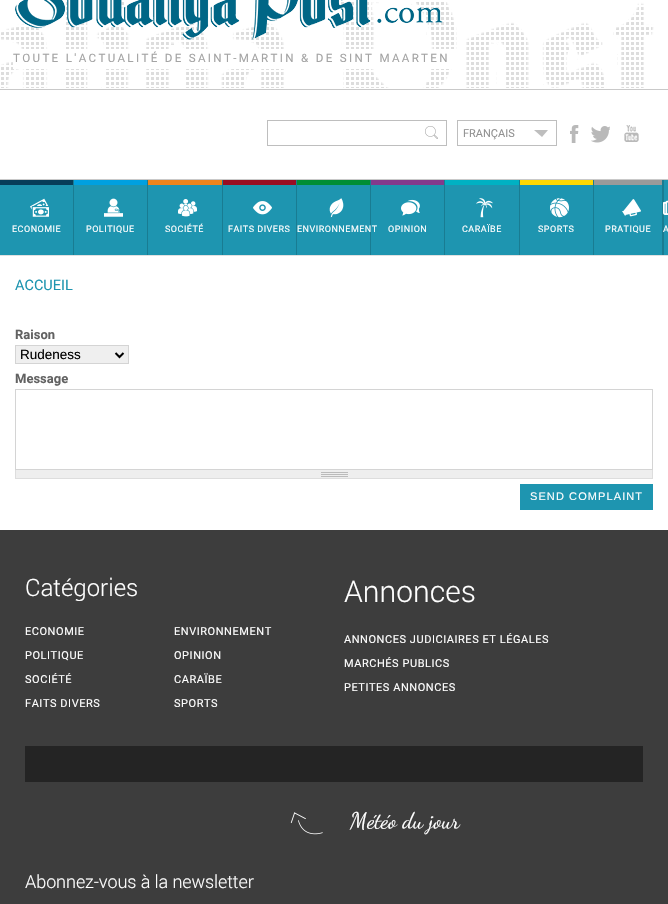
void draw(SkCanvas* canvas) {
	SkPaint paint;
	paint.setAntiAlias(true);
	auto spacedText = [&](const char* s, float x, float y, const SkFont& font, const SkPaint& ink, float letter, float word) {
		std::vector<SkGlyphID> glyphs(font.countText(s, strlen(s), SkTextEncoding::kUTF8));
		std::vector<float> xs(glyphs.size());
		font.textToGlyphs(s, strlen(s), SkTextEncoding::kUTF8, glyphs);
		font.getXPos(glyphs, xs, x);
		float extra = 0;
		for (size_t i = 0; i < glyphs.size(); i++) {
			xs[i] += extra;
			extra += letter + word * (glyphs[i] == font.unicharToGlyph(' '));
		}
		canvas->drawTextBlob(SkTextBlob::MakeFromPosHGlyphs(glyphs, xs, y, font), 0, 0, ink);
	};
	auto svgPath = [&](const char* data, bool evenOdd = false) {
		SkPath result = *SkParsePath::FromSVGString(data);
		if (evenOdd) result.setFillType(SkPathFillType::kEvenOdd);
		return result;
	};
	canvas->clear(0xffffffff);
	canvas->drawImageRect(SkImages::DeferredFromEncodedData(SkData::MakeFromFileName("img1.png")), SkRect::MakeXYWH(1, 2, 653, 86), SkSamplingOptions());
	canvas->drawImageRect(SkImages::DeferredFromEncodedData(SkData::MakeFromFileName("img2.png")), SkRect::MakeXYWH(15, 0, 428, 40), SkSamplingOptions());
	paint.setColor(0xffffffff);
	canvas->drawRect(SkRect::MakeXYWH(13, 49, 450, 20), paint);
	SkFont f1(fontMgr->matchFamilyStyle("Roboto", SkFontStyle::Normal()), 11.6);
	f1.setSubpixel(true);
	paint.setColor(0xffa4a4a4);
	spacedText("TOUTE L'ACTUALITÉ DE SAINT-MARTIN & DE SINT MAARTEN", 13, 62, f1, paint, 2.32, 0);
	paint.setColor(0xffc9c9c9);
	canvas->drawRect(SkRect::MakeXYWH(0, 89, 668, 1), paint);
	canvas->drawRect(SkRect::MakeXYWH(0, 179, 668, 1), paint);
	paint.setStroke(true);
	paint.setStrokeWidth(1);
	paint.setColor(0xffbebebe);
	canvas->drawRect(SkRect::MakeXYWH(267.5, 120.5, 179, 25), paint);
	canvas->drawImageRect(SkImages::DeferredFromEncodedData(SkData::MakeFromFileName("img3.png")), SkRect::MakeXYWH(425, 126, 13, 13), SkSamplingOptions());
	canvas->drawRect(SkRect::MakeXYWH(457.5, 120.5, 99, 25), paint);
	SkFont f2(fontMgr->matchFamilyStyle("Roboto", SkFontStyle::Normal()), 11);
	f2.setSubpixel(true);
	paint.setStroke(false);
	paint.setColor(0xff919191);
	canvas->drawString("FRANÇAIS", 463, 137, f2, paint);
	paint.setColor(0xffbebebe);
	canvas->drawPath(svgPath("M534 130H548L542 137Z"), paint);
	canvas->drawImageRect(SkImages::DeferredFromEncodedData(SkData::MakeFromFileName("img4.png")), SkRect::MakeXYWH(570, 125, 9, 18), SkSamplingOptions());
	canvas->drawImageRect(SkImages::DeferredFromEncodedData(SkData::MakeFromFileName("img5.png")), SkRect::MakeXYWH(591, 126, 19, 17), SkSamplingOptions());
	canvas->drawImageRect(SkImages::DeferredFromEncodedData(SkData::MakeFromFileName("img6.png")), SkRect::MakeXYWH(624, 125, 15, 17), SkSamplingOptions());
	paint.setColor(0xff1e95b0);
	canvas->drawRect(SkRect::MakeXYWH(0, 180, 668, 75), paint);
	paint.setColor(0xff197c92);
	canvas->drawRect(SkRect::MakeXYWH(73, 180, 1, 75), paint);
	paint.setColor(0xff073d59);
	canvas->drawRect(SkRect::MakeXYWH(0, 180, 73, 5), paint);
	canvas->drawImageRect(SkImages::DeferredFromEncodedData(SkData::MakeFromFileName("img7.png")), SkRect::MakeXYWH(30, 198, 19, 19), SkSamplingOptions());
	SkFont f3(fontMgr->matchFamilyStyle("Roboto", SkFontStyle::Normal()), 9);
	f3.setSubpixel(true);
	paint.setColor(0xffffffff);
	spacedText("ECONOMIE", 12, 232, f3, paint, 0.5, 0);
	paint.setColor(0xff197c92);
	canvas->drawRect(SkRect::MakeXYWH(147, 180, 1, 75), paint);
	paint.setColor(0xff00a0e0);
	canvas->drawRect(SkRect::MakeXYWH(74, 180, 73, 5), paint);
	canvas->drawImageRect(SkImages::DeferredFromEncodedData(SkData::MakeFromFileName("img8.png")), SkRect::MakeXYWH(104, 198, 19, 19), SkSamplingOptions());
	paint.setColor(0xffffffff);
	spacedText("POLITIQUE", 86, 232, f3, paint, 0.5, 0);
	paint.setColor(0xff197c92);
	canvas->drawRect(SkRect::MakeXYWH(222, 180, 1, 75), paint);
	paint.setColor(0xffed841b);
	canvas->drawRect(SkRect::MakeXYWH(148, 180, 74, 5), paint);
	canvas->drawImageRect(SkImages::DeferredFromEncodedData(SkData::MakeFromFileName("img9.png")), SkRect::MakeXYWH(178, 199, 19, 18), SkSamplingOptions());
	paint.setColor(0xffffffff);
	spacedText("SOCIÉTÉ", 165, 232, f3, paint, 0.5, 0);
	paint.setColor(0xff197c92);
	canvas->drawRect(SkRect::MakeXYWH(296, 180, 1, 75), paint);
	paint.setColor(0xff990e23);
	canvas->drawRect(SkRect::MakeXYWH(223, 180, 73, 5), paint);
	canvas->drawImageRect(SkImages::DeferredFromEncodedData(SkData::MakeFromFileName("img10.png")), SkRect::MakeXYWH(253, 201, 19, 14), SkSamplingOptions());
	paint.setColor(0xffffffff);
	spacedText("FAITS DIVERS", 228, 232, f3, paint, 0.5, 0);
	paint.setColor(0xff197c92);
	canvas->drawRect(SkRect::MakeXYWH(370, 180, 1, 75), paint);
	paint.setColor(0xff008e35);
	canvas->drawRect(SkRect::MakeXYWH(297, 180, 73, 5), paint);
	canvas->drawImageRect(SkImages::DeferredFromEncodedData(SkData::MakeFromFileName("img11.png")), SkRect::MakeXYWH(329, 198, 15, 20), SkSamplingOptions());
	paint.setColor(0xffffffff);
	spacedText("ENVIRONNEMENT", 297, 232, f3, paint, 0.5, 0);
	paint.setColor(0xff197c92);
	canvas->drawRect(SkRect::MakeXYWH(444, 180, 1, 75), paint);
	paint.setColor(0xff833a8c);
	canvas->drawRect(SkRect::MakeXYWH(371, 180, 73, 5), paint);
	canvas->drawImageRect(SkImages::DeferredFromEncodedData(SkData::MakeFromFileName("img12.png")), SkRect::MakeXYWH(401, 199, 19, 17), SkSamplingOptions());
	paint.setColor(0xffffffff);
	spacedText("OPINION", 388, 232, f3, paint, 0.5, 0);
	paint.setColor(0xff197c92);
	canvas->drawRect(SkRect::MakeXYWH(519, 180, 1, 75), paint);
	paint.setColor(0xff00b1c3);
	canvas->drawRect(SkRect::MakeXYWH(445, 180, 74, 5), paint);
	canvas->drawImageRect(SkImages::DeferredFromEncodedData(SkData::MakeFromFileName("img13.png")), SkRect::MakeXYWH(476, 198, 17, 20), SkSamplingOptions());
	paint.setColor(0xffffffff);
	spacedText("CARAÏBE", 462, 232, f3, paint, 0.5, 0);
	paint.setColor(0xff197c92);
	canvas->drawRect(SkRect::MakeXYWH(593, 180, 1, 75), paint);
	paint.setColor(0xffffd800);
	canvas->drawRect(SkRect::MakeXYWH(520, 180, 73, 5), paint);
	canvas->drawImageRect(SkImages::DeferredFromEncodedData(SkData::MakeFromFileName("img14.png")), SkRect::MakeXYWH(550, 198, 19, 20), SkSamplingOptions());
	paint.setColor(0xffffffff);
	spacedText("SPORTS", 538, 232, f3, paint, 0.5, 0);
	paint.setColor(0xff197c92);
	canvas->drawRect(SkRect::MakeXYWH(662, 180, 2, 75), paint);
	paint.setColor(0xff9a9a9a);
	canvas->drawRect(SkRect::MakeXYWH(594, 180, 68, 5), paint);
	canvas->drawImageRect(SkImages::DeferredFromEncodedData(SkData::MakeFromFileName("img15.png")), SkRect::MakeXYWH(622, 199, 19, 18), SkSamplingOptions());
	paint.setColor(0xffffffff);
	spacedText("PRATIQUE", 605, 232, f3, paint, 0.5, 0);
	canvas->drawImageRect(SkImages::DeferredFromEncodedData(SkData::MakeFromFileName("img16.png")), SkRect::MakeXYWH(663, 200, 5, 15), SkSamplingOptions());
	spacedText("A", 663, 232, f3, paint, 0.5, 0);
	paint.setColor(0xffe1e1e1);
	canvas->drawRect(SkRect::MakeXYWH(0, 255, 668, 1), paint);
	SkFont f4(fontMgr->matchFamilyStyle("Roboto", SkFontStyle::Normal()), 14.5);
	f4.setSubpixel(true);
	paint.setColor(0xff1e95b0);
	canvas->drawString("ACCUEIL", 15, 290, f4, paint);
	SkFont f5(fontMgr->matchFamilyStyle("Roboto", SkFontStyle::Bold()), 13);
	f5.setSubpixel(true);
	paint.setColor(0xff626262);
	canvas->drawString("Raison", 15, 339, f5, paint);
	paint.setColor(0xffefefef);
	canvas->drawRect(SkRect::MakeXYWH(15.5, 345.5, 113, 18), paint);
	paint.setStroke(true);
	paint.setColor(0xffd4d4d4);
	canvas->drawRect(SkRect::MakeXYWH(15.5, 345.5, 113, 18), paint);
	paint.setStrokeWidth(2);
	paint.setColor(0xff000000);
	canvas->drawPath(svgPath("M115.5 353L119.5 357L123.5 353"), paint);
	SkFont f6(fontMgr->matchFamilyStyle("Liberation Sans", SkFontStyle::Normal()), 13.5);
	f6.setSubpixel(true);
	paint.setStroke(false);
	canvas->drawString("Rudeness", 20, 359, f6, paint);
	paint.setColor(0xff626262);
	canvas->drawString("Message", 15, 383, f5, paint);
	paint.setStroke(true);
	paint.setStrokeWidth(1);
	paint.setColor(0xffd4d4d4);
	canvas->drawRect(SkRect::MakeXYWH(15.5, 389.5, 637, 80), paint);
	paint.setStroke(false);
	paint.setColor(0xffeeeeee);
	canvas->drawRect(SkRect::MakeXYWH(16, 470, 636, 8), paint);
	canvas->drawImageRect(SkImages::DeferredFromEncodedData(SkData::MakeFromFileName("img17.png")), SkRect::MakeXYWH(321, 472, 27, 5), SkSamplingOptions());
	paint.setColor(0xffdddddd);
	canvas->drawRect(SkRect::MakeXYWH(652, 470, 1, 9), paint);
	canvas->drawRect(SkRect::MakeXYWH(15, 478, 638, 1), paint);
	canvas->drawRect(SkRect::MakeXYWH(15, 470, 1, 9), paint);
	paint.setColor(0xff1e95b0);
	canvas->drawRect(SkRect::MakeXYWH(520, 484, 133, 26), paint);
	SkFont f7(fontMgr->matchFamilyStyle("Liberation Sans", SkFontStyle::Normal()), 11);
	f7.setSubpixel(true);
	paint.setColor(0xffffffff);
	spacedText("SEND COMPLAINT", 530, 500, f7, paint, 1.1, 0);
	paint.setColor(0xff3d3d3d);
	canvas->drawRect(SkRect::MakeXYWH(0, 530, 668, 374), paint);
	SkFont f8(fontMgr->matchFamilyStyle("Roboto", SkFontStyle(300, SkFontStyle::kNormal_Width, SkFontStyle::kUpright_Slant)), 24);
	f8.setSubpixel(true);
	paint.setColor(0xffffffff);
	canvas->drawString("Catégories", 25, 596, f8, paint);
	spacedText("ECONOMIE", 25, 635, f2, paint, 0.55, 0);
	spacedText("POLITIQUE", 25, 659, f2, paint, 0.55, 0);
	spacedText("SOCIÉTÉ", 25, 683, f2, paint, 0.55, 0);
	spacedText("FAITS DIVERS", 25, 707, f2, paint, 0.55, 0);
	spacedText("ENVIRONNEMENT", 174, 635, f2, paint, 0.55, 0);
	spacedText("OPINION", 174, 659, f2, paint, 0.55, 0);
	spacedText("CARAÏBE", 174, 683, f2, paint, 0.55, 0);
	spacedText("SPORTS", 174, 707, f2, paint, 0.55, 0);
	SkFont f9(fontMgr->matchFamilyStyle("Roboto", SkFontStyle(300, SkFontStyle::kNormal_Width, SkFontStyle::kUpright_Slant)), 30);
	f9.setSubpixel(true);
	canvas->drawString("Annonces", 344, 602, f9, paint);
	spacedText("ANNONCES JUDICIAIRES ET LÉGALES", 344, 643, f2, paint, 0.55, 0);
	spacedText("MARCHÉS PUBLICS", 344, 667, f2, paint, 0.55, 0);
	spacedText("PETITES ANNONCES", 344, 691, f2, paint, 0.55, 0);
	paint.setColor(0xff242424);
	canvas->drawRect(SkRect::MakeXYWH(25, 746, 618, 36), paint);
	canvas->drawImageRect(SkImages::DeferredFromEncodedData(SkData::MakeFromFileName("img18.png")), SkRect::MakeXYWH(290, 812, 33, 23), SkSamplingOptions());
	SkFont f10(fontMgr->matchFamilyStyle("Dancing Script", SkFontStyle::Normal()), 22.5);
	f10.setSubpixel(true);
	paint.setColor(0xffffffff);
	canvas->drawString("Météo du jour", 350, 828, f10, paint);
	SkFont f11(fontMgr->matchFamilyStyle("Roboto", SkFontStyle(300, SkFontStyle::kNormal_Width, SkFontStyle::kUpright_Slant)), 18);
	f11.setSubpixel(true);
	spacedText("Abonnez-vous à la newsletter", 25, 888, f11, paint, -0.1, 0);
}
